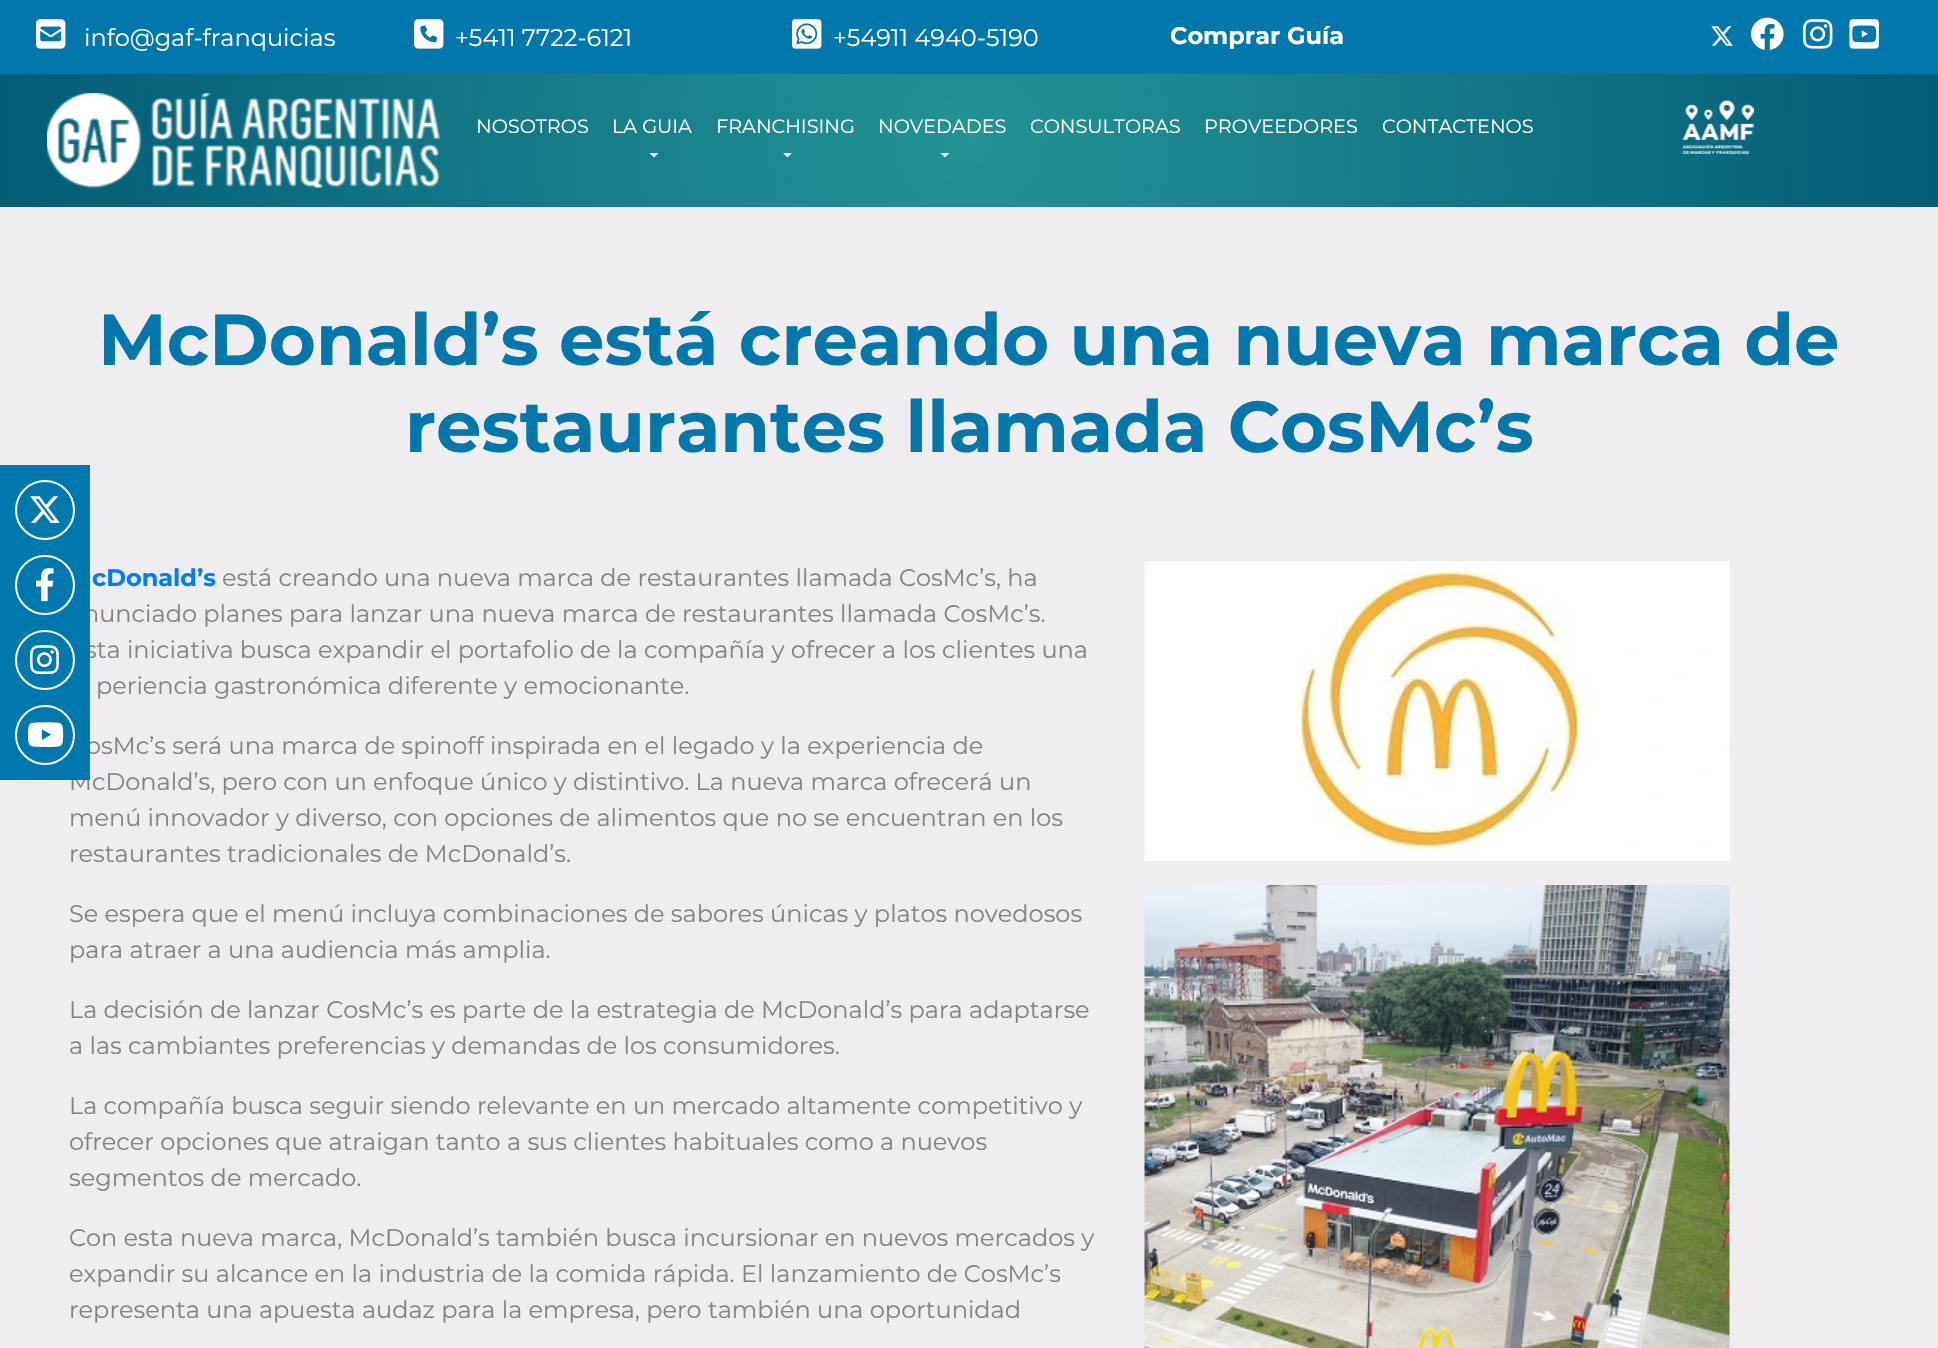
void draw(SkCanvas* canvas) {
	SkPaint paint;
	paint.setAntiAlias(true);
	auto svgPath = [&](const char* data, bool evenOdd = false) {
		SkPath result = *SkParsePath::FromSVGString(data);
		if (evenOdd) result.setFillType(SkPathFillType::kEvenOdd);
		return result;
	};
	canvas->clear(0xff0177ac);
	canvas->drawImageRect(SkImages::DeferredFromEncodedData(SkData::MakeFromFileName("img1.png")), SkRect::MakeXYWH(36, 19, 30, 30), SkSamplingOptions());
	SkFont f1(fontMgr->matchFamilyStyle("Montserrat", SkFontStyle::Normal()), 24);
	f1.setSubpixel(true);
	paint.setColor(0xffffffff);
	canvas->drawString("info@gaf-franquicias", 84, 46, f1, paint);
	canvas->drawImageRect(SkImages::DeferredFromEncodedData(SkData::MakeFromFileName("img2.png")), SkRect::MakeXYWH(414, 19, 30, 30), SkSamplingOptions());
	canvas->drawString("+5411 7722-6121", 455, 46, f1, paint);
	canvas->drawImageRect(SkImages::DeferredFromEncodedData(SkData::MakeFromFileName("img3.png")), SkRect::MakeXYWH(792, 19, 30, 30), SkSamplingOptions());
	canvas->drawString("+54911 4940-5190", 833, 46, f1, paint);
	SkFont f2(fontMgr->matchFamilyStyle("Montserrat", SkFontStyle::Bold()), 24);
	f2.setSubpixel(true);
	canvas->drawString("Comprar Guía", 1170, 44, f2, paint);
	canvas->drawImageRect(SkImages::DeferredFromEncodedData(SkData::MakeFromFileName("img4.png")), SkRect::MakeXYWH(1711, 26, 22, 20), SkSamplingOptions());
	canvas->drawImageRect(SkImages::DeferredFromEncodedData(SkData::MakeFromFileName("img5.png")), SkRect::MakeXYWH(1751, 17, 33, 33), SkSamplingOptions());
	canvas->drawImageRect(SkImages::DeferredFromEncodedData(SkData::MakeFromFileName("img6.png")), SkRect::MakeXYWH(1803, 19, 30, 30), SkSamplingOptions());
	canvas->drawImageRect(SkImages::DeferredFromEncodedData(SkData::MakeFromFileName("img7.png")), SkRect::MakeXYWH(1849, 19, 30, 30), SkSamplingOptions());
	{
		const SkColor colors[] = {0xff239396, 0xff035c77};
		const float stops[] = {0, 1};
		paint.setShader(SkGradientShader::MakeRadial({969, 140}, 971, colors, stops, 2, SkTileMode::kClamp));
		paint.setAlpha(255);
	}
	canvas->drawRect(SkRect::MakeXYWH(0, 74, 1938, 133), paint);
	canvas->drawImageRect(SkImages::DeferredFromEncodedData(SkData::MakeFromFileName("img8.png")), SkRect::MakeXYWH(47, 93, 393, 95), SkSamplingOptions());
	SkFont f3(fontMgr->matchFamilyStyle("Montserrat", SkFontStyle::Normal()), 19.25);
	f3.setSubpixel(true);
	paint.setShader(nullptr);
	paint.setColor(0xffffffff);
	canvas->drawString("NOSOTROS", 476, 133, f3, paint);
	canvas->drawString("LA GUIA", 612, 133, f3, paint);
	canvas->drawPath(svgPath("M649.5 153H658.5L654 157.5Z"), paint);
	canvas->drawString("FRANCHISING", 716, 133, f3, paint);
	canvas->drawPath(svgPath("M783 153H792L787.5 157.5Z"), paint);
	canvas->drawString("NOVEDADES", 878, 133, f3, paint);
	canvas->drawPath(svgPath("M940.5 153H949.5L945 157.5Z"), paint);
	canvas->drawString("CONSULTORAS", 1030, 133, f3, paint);
	canvas->drawString("PROVEEDORES", 1204, 133, f3, paint);
	canvas->drawString("CONTACTENOS", 1382, 133, f3, paint);
	canvas->drawImageRect(SkImages::DeferredFromEncodedData(SkData::MakeFromFileName("img9.png")), SkRect::MakeXYWH(1682, 100, 72, 55), SkSamplingOptions());
	paint.setColor(0xffefedef);
	canvas->drawRect(SkRect::MakeXYWH(0, 207, 1938, 1141), paint);
	paint.setColor(0xff848484);
	canvas->drawString("nunciado planes para lanzar una nueva marca de restaurantes llamada CosMc’s.", 83, 622, f1, paint);
	canvas->drawString("sta iniciativa busca expandir el portafolio de la compañía y ofrecer a los clientes una", 85, 658, f1, paint);
	canvas->drawString("osMc’s será una marca de spinoff inspirada en el legado y la experiencia de", 86, 754, f1, paint);
	canvas->drawString("McDonald’s, pero con un enfoque único y distintivo. La nueva marca ofrecerá un", 69, 790, f1, paint);
	paint.setColor(0xff0178ad);
	canvas->drawRect(SkRect::MakeXYWH(0, 465, 90, 315), paint);
	paint.setStroke(true);
	paint.setStrokeWidth(2);
	paint.setColor(0xffffffff);
	canvas->drawCircle(45, 510, 29, paint);
	canvas->drawImageRect(SkImages::DeferredFromEncodedData(SkData::MakeFromFileName("img10.png")), SkRect::MakeXYWH(30, 496, 30, 27), SkSamplingOptions());
	canvas->drawCircle(45, 585, 29, paint);
	canvas->drawImageRect(SkImages::DeferredFromEncodedData(SkData::MakeFromFileName("img11.png")), SkRect::MakeXYWH(36, 568, 18, 34), SkSamplingOptions());
	canvas->drawCircle(45, 660, 29, paint);
	canvas->drawImageRect(SkImages::DeferredFromEncodedData(SkData::MakeFromFileName("img12.png")), SkRect::MakeXYWH(30, 645, 29, 30), SkSamplingOptions());
	canvas->drawCircle(45, 735, 29, paint);
	canvas->drawImageRect(SkImages::DeferredFromEncodedData(SkData::MakeFromFileName("img13.png")), SkRect::MakeXYWH(27, 722, 37, 25), SkSamplingOptions());
	SkFont f4(fontMgr->matchFamilyStyle("Montserrat", SkFontStyle::Bold()), 72);
	f4.setSubpixel(true);
	paint.setStroke(false);
	paint.setColor(0xff0177ac);
	canvas->drawString("McDonald’s está creando una nueva marca de", 98, 365, f4, paint);
	canvas->drawString("restaurantes llamada CosMc’s", 405, 452, f4, paint);
	paint.setColor(0xff007bff);
	canvas->drawString("cDonald’s", 92, 586, f2, paint);
	paint.setColor(0xff848484);
	canvas->drawString("está creando una nueva marca de restaurantes llamada CosMc’s, ha", 222, 586, f1, paint);
	canvas->drawString("periencia gastronómica diferente y emocionante.", 96, 694, f1, paint);
	canvas->drawString("menú innovador y diverso, con opciones de alimentos que no se encuentran en los", 69, 826, f1, paint);
	canvas->drawString("restaurantes tradicionales de McDonald’s.", 69, 862, f1, paint);
	canvas->drawString("Se espera que el menú incluya combinaciones de sabores únicas y platos novedosos", 69, 922, f1, paint);
	canvas->drawString("para atraer a una audiencia más amplia.", 69, 958, f1, paint);
	canvas->drawString("La decisión de lanzar CosMc’s es parte de la estrategia de McDonald’s para adaptarse", 69, 1018, f1, paint);
	canvas->drawString("a las cambiantes preferencias y demandas de los consumidores.", 69, 1054, f1, paint);
	canvas->drawString("La compañía busca seguir siendo relevante en un mercado altamente competitivo y", 69, 1114, f1, paint);
	canvas->drawString("ofrecer opciones que atraigan tanto a sus clientes habituales como a nuevos", 69, 1150, f1, paint);
	canvas->drawString("segmentos de mercado.", 69, 1186, f1, paint);
	canvas->drawString("Con esta nueva marca, McDonald’s también busca incursionar en nuevos mercados y", 69, 1246, f1, paint);
	canvas->drawString("expandir su alcance en la industria de la comida rápida. El lanzamiento de CosMc’s", 69, 1282, f1, paint);
	canvas->drawString("representa una apuesta audaz para la empresa, pero también una oportunidad", 69, 1318, f1, paint);
	canvas->drawImageRect(SkImages::DeferredFromEncodedData(SkData::MakeFromFileName("img14.png")), SkRect::MakeXYWH(1144, 561, 586, 300), SkSamplingOptions());
	canvas->drawImageRect(SkImages::DeferredFromEncodedData(SkData::MakeFromFileName("img15.png")), SkRect::MakeXYWH(1144, 885, 586, 463), SkSamplingOptions());
}
